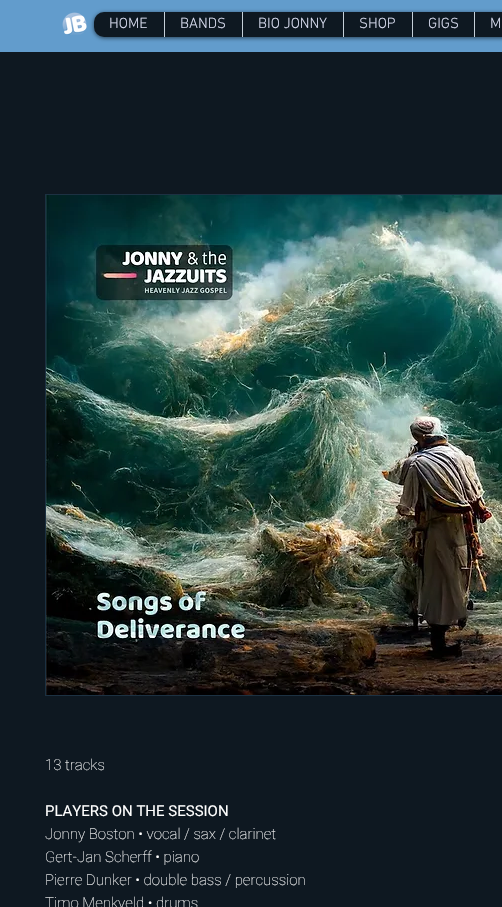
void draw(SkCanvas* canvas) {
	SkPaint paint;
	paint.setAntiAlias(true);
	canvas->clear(0xff0e1821);
	paint.setColor(0xff629ccc);
	canvas->drawRect(SkRect::MakeXYWH(0, 0, 502, 52), paint);
	canvas->drawImageRect(SkImages::DeferredFromEncodedData(SkData::MakeFromFileName("img1.png")), SkRect::MakeXYWH(62, 12, 25, 23), SkSamplingOptions());
	paint.setColor(0x99000000);
	paint.setMaskFilter(SkMaskFilter::MakeBlur(kNormal_SkBlurStyle, 2));
	canvas->drawRoundRect(SkRect::MakeXYWH(94, 13, 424, 25), 10, 10, paint);
	paint.setMaskFilter(nullptr);
	paint.setColor(0xff0e1821);
	canvas->drawRoundRect(SkRect::MakeXYWH(94, 12, 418, 25), 10, 10, paint);
	SkFont f1(fontMgr->matchFamilyStyle("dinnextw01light", SkFontStyle(300, SkFontStyle::kNormal_Width, SkFontStyle::kUpright_Slant)), 15);
	f1.setSubpixel(true);
	paint.setColor(0xffd8dcef);
	canvas->drawString("HOME", 109, 28, f1, paint);
	paint.setColor(0xffc5d0d9);
	canvas->drawRect(SkRect::MakeXYWH(164, 12, 1, 25), paint);
	paint.setColor(0xffd8dcef);
	canvas->drawString("BANDS", 180, 28, f1, paint);
	paint.setColor(0xffc5d0d9);
	canvas->drawRect(SkRect::MakeXYWH(242, 12, 1, 25), paint);
	paint.setColor(0xffd8dcef);
	canvas->drawString("BIO JONNY", 258, 28, f1, paint);
	paint.setColor(0xffc5d0d9);
	canvas->drawRect(SkRect::MakeXYWH(343, 12, 1, 25), paint);
	paint.setColor(0xffd8dcef);
	canvas->drawString("SHOP", 359, 28, f1, paint);
	paint.setColor(0xffc5d0d9);
	canvas->drawRect(SkRect::MakeXYWH(412, 12, 1, 25), paint);
	paint.setColor(0xffd8dcef);
	canvas->drawString("GIGS", 428, 28, f1, paint);
	paint.setColor(0xffc5d0d9);
	canvas->drawRect(SkRect::MakeXYWH(474, 12, 1, 25), paint);
	paint.setColor(0xffd8dcef);
	canvas->drawString("M", 490, 28, f1, paint);
	paint.setStroke(true);
	paint.setStrokeWidth(1);
	paint.setColor(0xff1c3142);
	canvas->drawRect(SkRect::MakeXYWH(45.5, 194.5, 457, 501), paint);
	canvas->drawImageRect(SkImages::DeferredFromEncodedData(SkData::MakeFromFileName("img2.png")), SkRect::MakeXYWH(46, 195, 456, 500), SkSamplingOptions());
	SkFont f2(fontMgr->matchFamilyStyle("Roboto", SkFontStyle(100, SkFontStyle::kNormal_Width, SkFontStyle::kUpright_Slant)), 15);
	f2.setSubpixel(true);
	paint.setStroke(false);
	paint.setColor(0xffffffff);
	canvas->drawString("13 tracks", 45, 770, f2, paint);
	SkFont f3(fontMgr->matchFamilyStyle("Roboto", SkFontStyle::Normal()), 15);
	f3.setSubpixel(true);
	canvas->drawString("PLAYERS ON THE SESSION", 45, 816, f3, paint);
	canvas->drawString("Jonny Boston • vocal / sax / clarinet", 45, 839, f2, paint);
	canvas->drawString("Gert-Jan Scherff • piano", 45, 862, f2, paint);
	canvas->drawString("Pierre Dunker • double bass / percussion", 45, 885, f2, paint);
	canvas->drawString("Timo Menkveld • drums", 45, 908, f2, paint);
}
